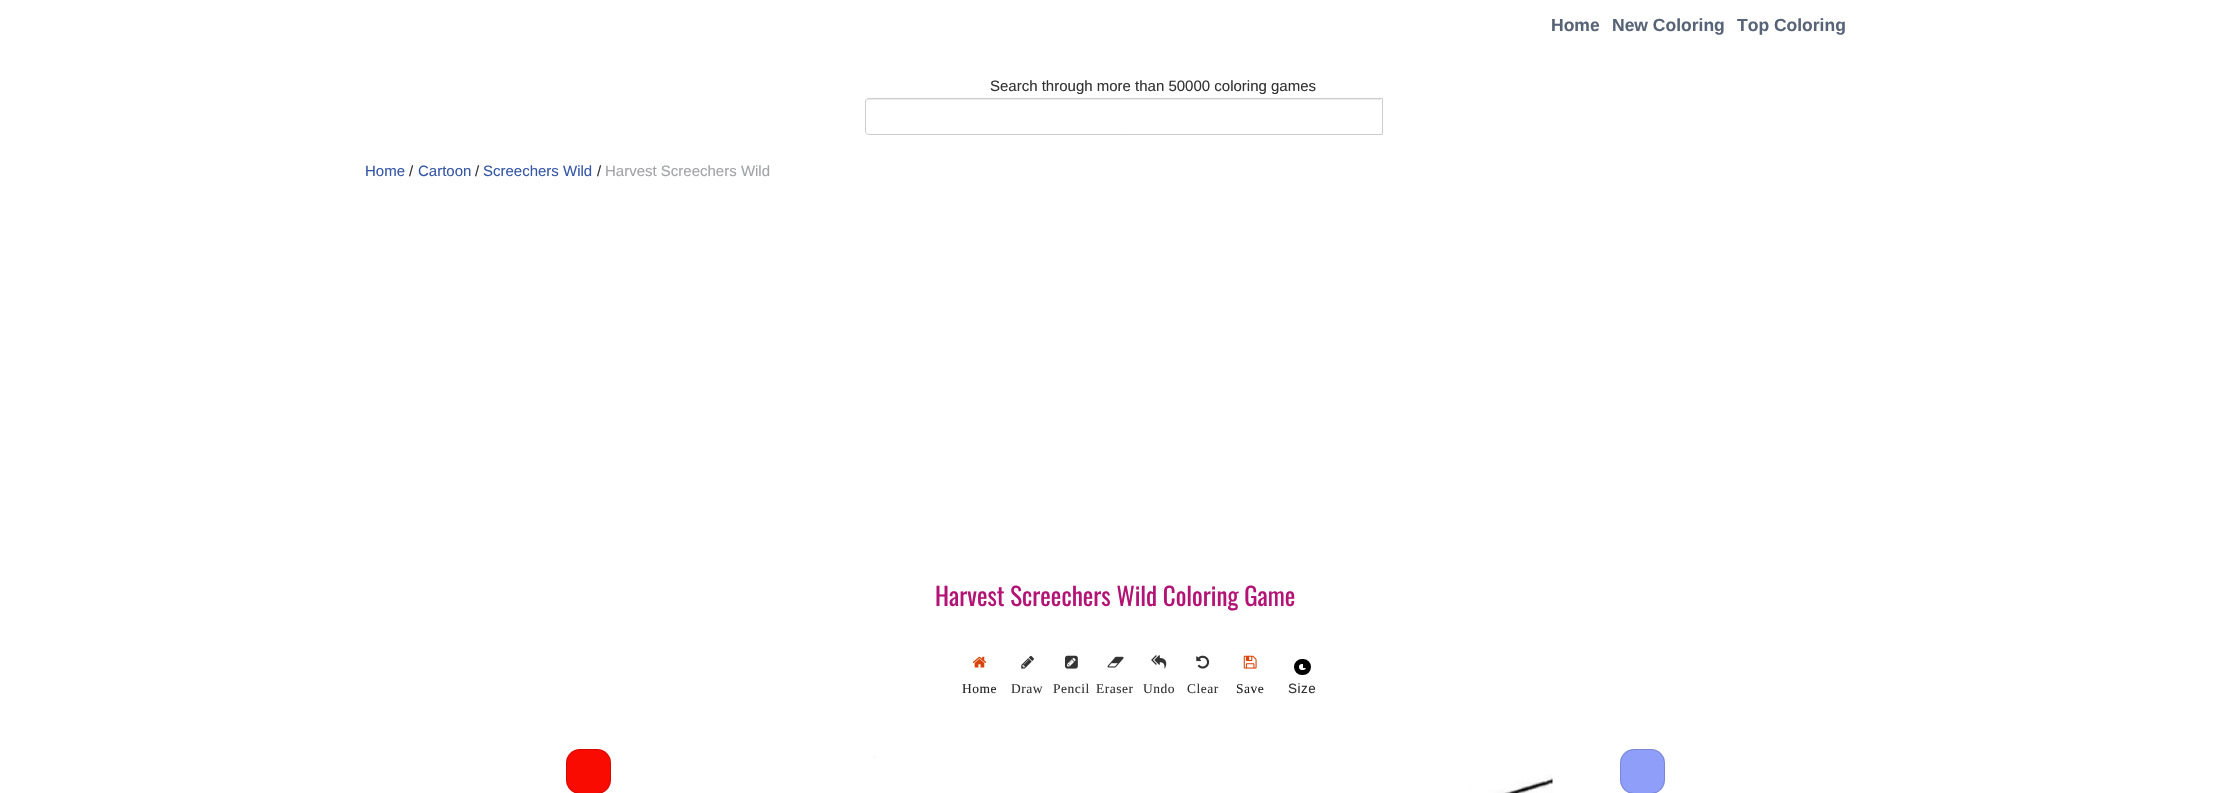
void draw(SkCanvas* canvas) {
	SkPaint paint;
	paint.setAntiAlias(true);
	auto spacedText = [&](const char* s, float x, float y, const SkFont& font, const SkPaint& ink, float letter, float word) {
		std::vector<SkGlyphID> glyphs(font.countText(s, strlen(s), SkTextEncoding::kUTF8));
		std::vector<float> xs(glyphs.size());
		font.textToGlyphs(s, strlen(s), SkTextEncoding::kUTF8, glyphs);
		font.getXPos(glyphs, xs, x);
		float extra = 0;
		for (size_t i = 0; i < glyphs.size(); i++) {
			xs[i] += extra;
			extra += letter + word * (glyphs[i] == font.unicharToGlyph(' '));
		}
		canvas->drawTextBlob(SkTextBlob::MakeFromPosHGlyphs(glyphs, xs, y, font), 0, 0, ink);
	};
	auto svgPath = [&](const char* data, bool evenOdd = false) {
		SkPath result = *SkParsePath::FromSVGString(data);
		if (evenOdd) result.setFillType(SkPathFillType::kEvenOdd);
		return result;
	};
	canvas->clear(0xffffffff);
	SkFont f1(fontMgr->matchFamilyStyle("Liberation Sans", SkFontStyle::Bold()), 17.5);
	f1.setSubpixel(true);
	paint.setColor(0xff576376);
	canvas->drawString("Home", 1551, 31, f1, paint);
	canvas->drawString("New Coloring", 1612, 31, f1, paint);
	canvas->drawString("Top Coloring", 1737, 31, f1, paint);
	SkFont f2(fontMgr->matchFamilyStyle("Liberation Sans", SkFontStyle::Normal()), 15);
	f2.setSubpixel(true);
	paint.setColor(0xff333333);
	canvas->drawString("Search through more than 50000 coloring games", 990, 91, f2, paint);
	paint.setColor(0xffececec);
	canvas->drawPath(svgPath("M869 100H1381V99H868C867 99 866 100 866 102C866 101 867 100 869 100Z"), paint);
	paint.setStroke(true);
	paint.setStrokeWidth(1);
	paint.setColor(0xffcccccc);
	canvas->drawPath(svgPath("M869 98.5H1382.5V134.5H869C867 134.5 865.5 133 865.5 131V102C865.5 100 867 98.5 869 98.5Z"), paint);
	paint.setStroke(false);
	paint.setColor(0xff3657a7);
	canvas->drawString("Home", 365, 176, f2, paint);
	paint.setColor(0xff333333);
	canvas->drawString("/", 409, 176, f2, paint);
	paint.setColor(0xff3657a7);
	canvas->drawString("Cartoon", 418, 176, f2, paint);
	paint.setColor(0xff333333);
	canvas->drawString("/", 475, 176, f2, paint);
	paint.setColor(0xff3657a7);
	canvas->drawString("Screechers Wild", 483, 176, f2, paint);
	paint.setColor(0xff333333);
	canvas->drawString("/", 597, 176, f2, paint);
	paint.setColor(0xffa1a3a6);
	canvas->drawString("Harvest Screechers Wild", 605, 176, f2, paint);
	SkFont f3(fontMgr->matchFamilyStyle("Oswald", SkFontStyle::Normal()), 25);
	f3.setSubpixel(true);
	paint.setColor(0xffb41376);
	canvas->drawString("Harvest Screechers Wild Coloring Game", 935, 606, f3, paint);
	canvas->drawImageRect(SkImages::DeferredFromEncodedData(SkData::MakeFromFileName("img1.png")), SkRect::MakeXYWH(972, 656, 15, 12), SkSamplingOptions());
	SkFont f4(fontMgr->matchFamilyStyle("Liberation Serif", SkFontStyle::Normal()), 13.5);
	f4.setSubpixel(true);
	paint.setColor(0xff222222);
	spacedText("Home", 962, 693, f4, paint, 0.5, 0);
	canvas->drawImageRect(SkImages::DeferredFromEncodedData(SkData::MakeFromFileName("img2.png")), SkRect::MakeXYWH(1021, 655, 13, 14), SkSamplingOptions());
	paint.setColor(0xff333333);
	spacedText("Draw", 1011, 693, f4, paint, 0.5, 0);
	canvas->drawImageRect(SkImages::DeferredFromEncodedData(SkData::MakeFromFileName("img3.png")), SkRect::MakeXYWH(1065, 655, 13, 14), SkSamplingOptions());
	spacedText("Pencil", 1053, 693, f4, paint, 0.5, 0);
	canvas->drawImageRect(SkImages::DeferredFromEncodedData(SkData::MakeFromFileName("img4.png")), SkRect::MakeXYWH(1107, 656, 17, 12), SkSamplingOptions());
	spacedText("Eraser", 1096, 693, f4, paint, 0.5, 0);
	canvas->drawImageRect(SkImages::DeferredFromEncodedData(SkData::MakeFromFileName("img5.png")), SkRect::MakeXYWH(1151, 655, 16, 14), SkSamplingOptions());
	spacedText("Undo", 1143, 693, f4, paint, 0.5, 0);
	canvas->drawImageRect(SkImages::DeferredFromEncodedData(SkData::MakeFromFileName("img6.png")), SkRect::MakeXYWH(1196, 655, 14, 14), SkSamplingOptions());
	spacedText("Clear", 1187, 693, f4, paint, 0.5, 0);
	canvas->drawImageRect(SkImages::DeferredFromEncodedData(SkData::MakeFromFileName("img7.png")), SkRect::MakeXYWH(1243, 655, 14, 14), SkSamplingOptions());
	paint.setColor(0xff222222);
	spacedText("Save", 1236, 693, f4, paint, 0.5, 0);
	paint.setStroke(true);
	paint.setStrokeWidth(5);
	paint.setColor(0xff000000);
	canvas->drawRoundRect(SkRect::MakeXYWH(1296.5, 661.5, 12, 11), 5.5, 5.5, paint);
	paint.setStroke(false);
	canvas->drawRect(SkRect::MakeXYWH(1303, 664, 4, 4), paint);
	SkFont f5(fontMgr->matchFamilyStyle("Liberation Sans", SkFontStyle::Normal()), 13.5);
	f5.setSubpixel(true);
	paint.setColor(0xff333333);
	spacedText("Size", 1288, 693, f5, paint, 0.5, 0);
	paint.setColor(0xfff90b01);
	canvas->drawRoundRect(SkRect::MakeXYWH(566, 749, 45, 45), 14, 14, paint);
	paint.setStroke(true);
	paint.setStrokeWidth(1);
	paint.setColor(0x26000000);
	canvas->drawRoundRect(SkRect::MakeXYWH(566.5, 749.5, 44, 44), 13.5, 13.5, paint);
	canvas->drawImageRect(SkImages::DeferredFromEncodedData(SkData::MakeFromFileName("img8.png")), SkRect::MakeXYWH(873, 755, 680, 38), SkSamplingOptions());
	paint.setStroke(false);
	paint.setColor(0xff8f9ef9);
	canvas->drawRoundRect(SkRect::MakeXYWH(1620, 749, 45, 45), 14, 14, paint);
	paint.setStroke(true);
	paint.setColor(0x26000000);
	canvas->drawRoundRect(SkRect::MakeXYWH(1620.5, 749.5, 44, 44), 13.5, 13.5, paint);
}
